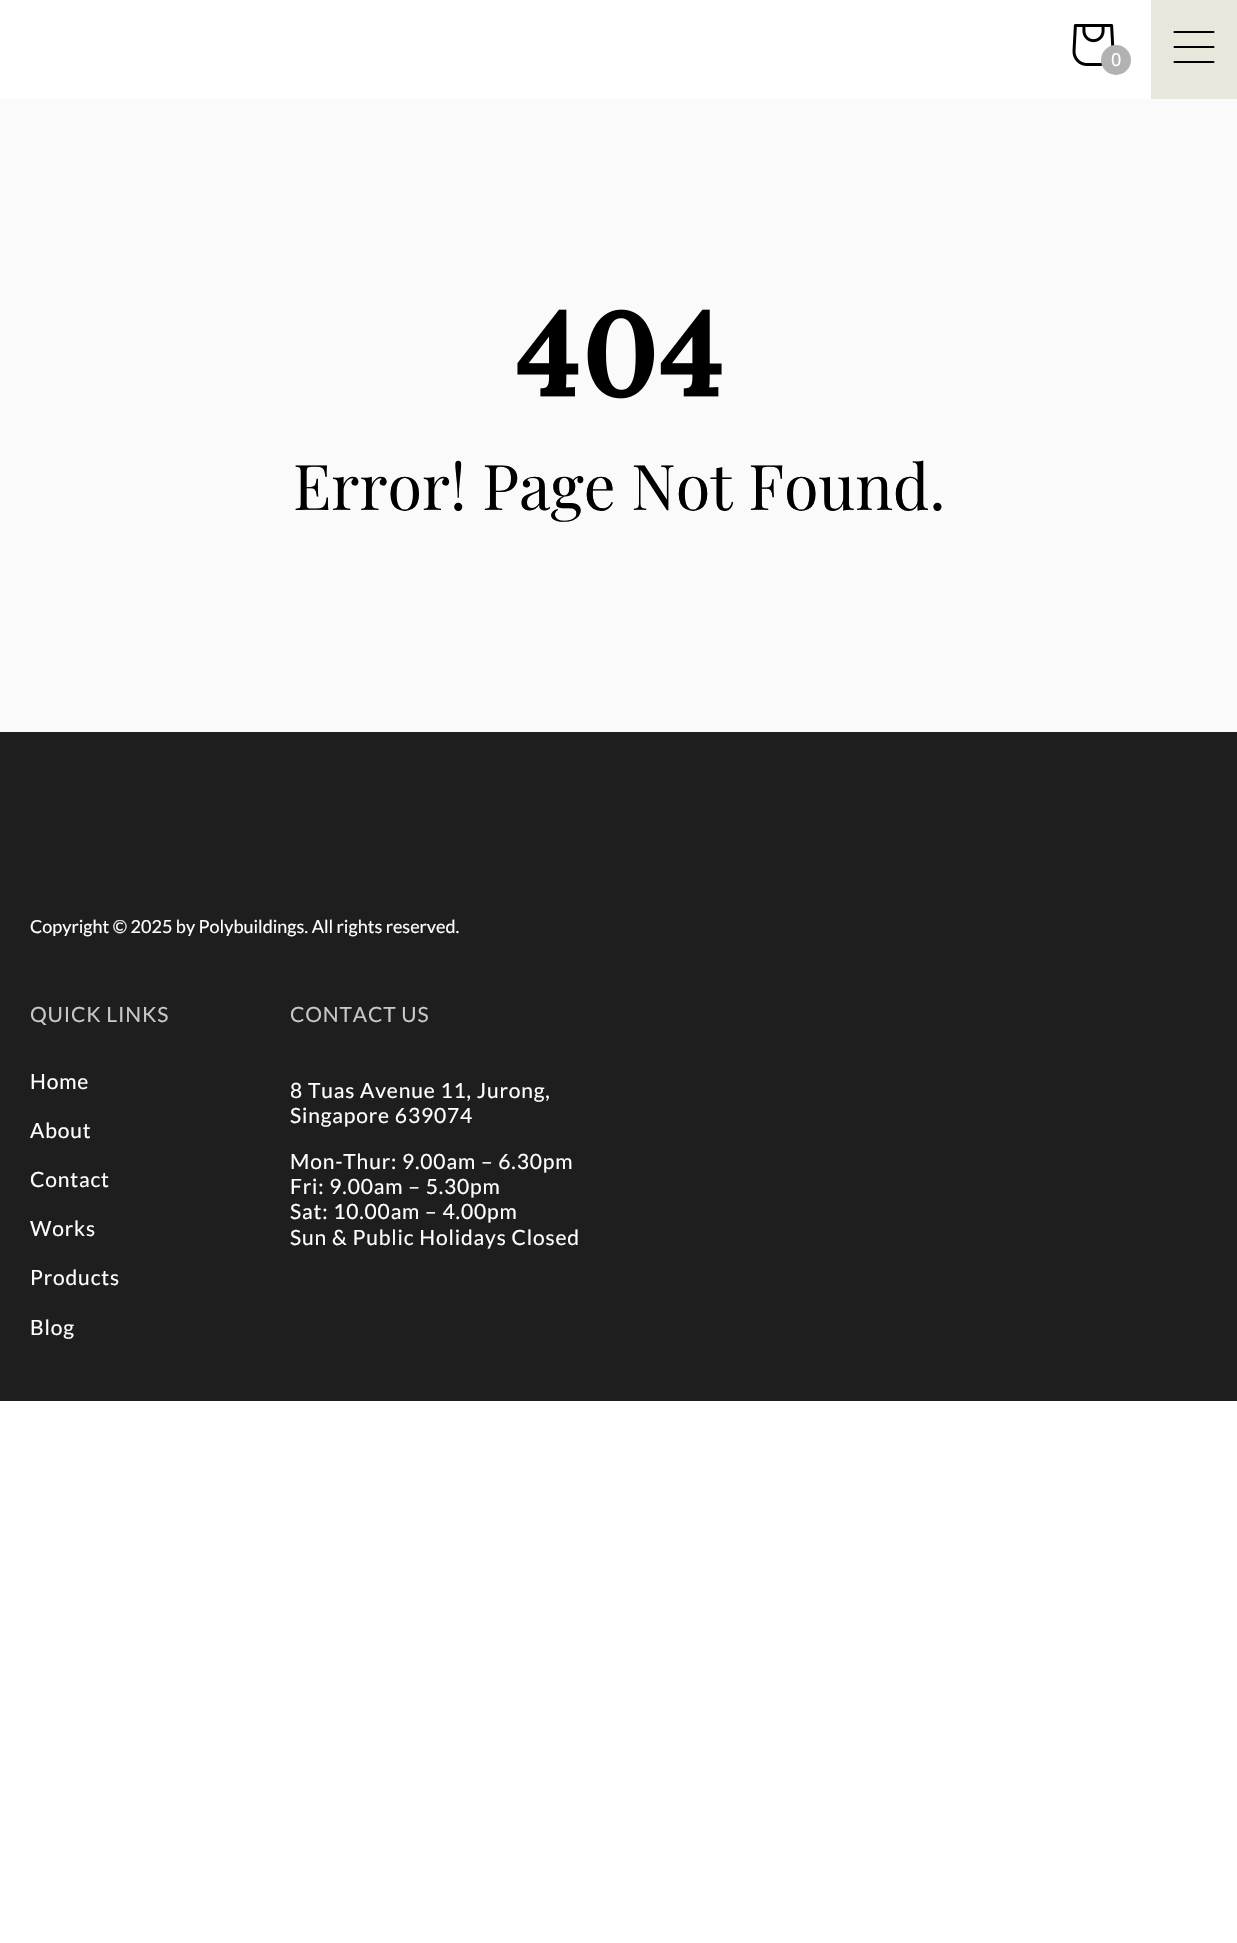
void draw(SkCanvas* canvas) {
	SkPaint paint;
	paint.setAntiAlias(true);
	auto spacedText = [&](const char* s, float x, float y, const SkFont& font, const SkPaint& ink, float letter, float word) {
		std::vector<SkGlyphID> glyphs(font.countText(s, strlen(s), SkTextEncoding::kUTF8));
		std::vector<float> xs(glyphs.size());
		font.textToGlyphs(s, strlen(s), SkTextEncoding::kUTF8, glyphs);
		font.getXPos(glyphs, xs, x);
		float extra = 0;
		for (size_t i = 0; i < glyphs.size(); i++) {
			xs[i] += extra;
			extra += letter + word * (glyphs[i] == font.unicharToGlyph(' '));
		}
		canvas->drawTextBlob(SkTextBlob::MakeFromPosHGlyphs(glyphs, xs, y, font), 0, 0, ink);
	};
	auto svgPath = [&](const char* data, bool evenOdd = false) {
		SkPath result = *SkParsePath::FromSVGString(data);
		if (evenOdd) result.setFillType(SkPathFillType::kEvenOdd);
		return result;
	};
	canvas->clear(0xffffffff);
	canvas->drawImageRect(SkImages::DeferredFromEncodedData(SkData::MakeFromFileName("img1.png")), SkRect::MakeXYWH(1072, 24, 43, 42), SkSamplingOptions());
	paint.setColor(0xffb2b2b2);
	canvas->drawCircle(1116, 60, 15, paint);
	SkFont f1(fontMgr->matchFamilyStyle("Noto Sans", SkFontStyle::Normal()), 18);
	f1.setSubpixel(true);
	paint.setColor(0xffffffff);
	canvas->drawString("0", 1111, 66, f1, paint);
	paint.setColor(0xffe9e7dc);
	canvas->drawRect(SkRect::MakeXYWH(1151, 0, 86, 99), paint);
	paint.setStroke(true);
	paint.setStrokeWidth(2.1);
	paint.setStrokeCap(SkPaint::kRound_Cap);
	paint.setStrokeJoin(SkPaint::kRound_Join);
	paint.setColor(0xff000000);
	canvas->drawPath(svgPath("M1213.5 32H1174.5M1213.5 47H1174.5M1213.5 62H1174.5"), paint);
	paint.setStroke(false);
	paint.setColor(0xfffafafa);
	canvas->drawRect(SkRect::MakeXYWH(0, 99, 1237, 633), paint);
	canvas->drawImageRect(SkImages::DeferredFromEncodedData(SkData::MakeFromFileName("img2.png")), SkRect::MakeXYWH(517, 309, 205, 90), SkSamplingOptions());
	SkFont f2(fontMgr->matchFamilyStyle("Playfair Display", SkFontStyle::Normal()), 63);
	f2.setSubpixel(true);
	paint.setColor(0xff000000);
	canvas->drawString("Error! Page Not Found.", 293, 510, f2, paint);
	paint.setColor(0xff1e1e1e);
	canvas->drawRect(SkRect::MakeXYWH(0, 732, 1237, 669), paint);
	SkFont f3(fontMgr->matchFamilyStyle("Lato", SkFontStyle::Normal()), 18);
	f3.setSubpixel(true);
	paint.setColor(0xffffffff);
	canvas->drawString("Copyright © 2025 by Polybuildings. All rights reserved.", 30, 933, f3, paint);
	SkFont f4(fontMgr->matchFamilyStyle("Lato", SkFontStyle::Normal()), 21);
	f4.setSubpixel(true);
	paint.setColor(0xffc7c7c7);
	spacedText("QUICK LINKS", 30, 1022, f4, paint, 0.85, 0);
	paint.setColor(0xffffffff);
	spacedText("Home", 30, 1089, f4, paint, 0.85, 0);
	spacedText("About", 30, 1138, f4, paint, 0.85, 0);
	spacedText("Contact", 30, 1187, f4, paint, 0.85, 0);
	spacedText("Works", 30, 1236, f4, paint, 0.85, 0);
	spacedText("Products", 30, 1285, f4, paint, 0.85, 0);
	spacedText("Blog", 30, 1335, f4, paint, 0.85, 0);
	paint.setColor(0xffc7c7c7);
	spacedText("CONTACT US", 290, 1022, f4, paint, 0.85, 0);
	paint.setColor(0xffffffff);
	spacedText("8 Tuas Avenue 11, Jurong,", 290, 1098, f4, paint, 0.85, 0);
	spacedText("Singapore 639074", 290, 1123, f4, paint, 0.85, 0);
	spacedText("Mon-Thur: 9.00am – 6.30pm", 290, 1169, f4, paint, 0.85, 0);
	spacedText("Fri: 9.00am – 5.30pm", 290, 1194, f4, paint, 0.85, 0);
	spacedText("Sat: 10.00am – 4.00pm", 290, 1219, f4, paint, 0.85, 0);
	spacedText("Sun & Public Holidays Closed", 290, 1245, f4, paint, 0.85, 0);
}
